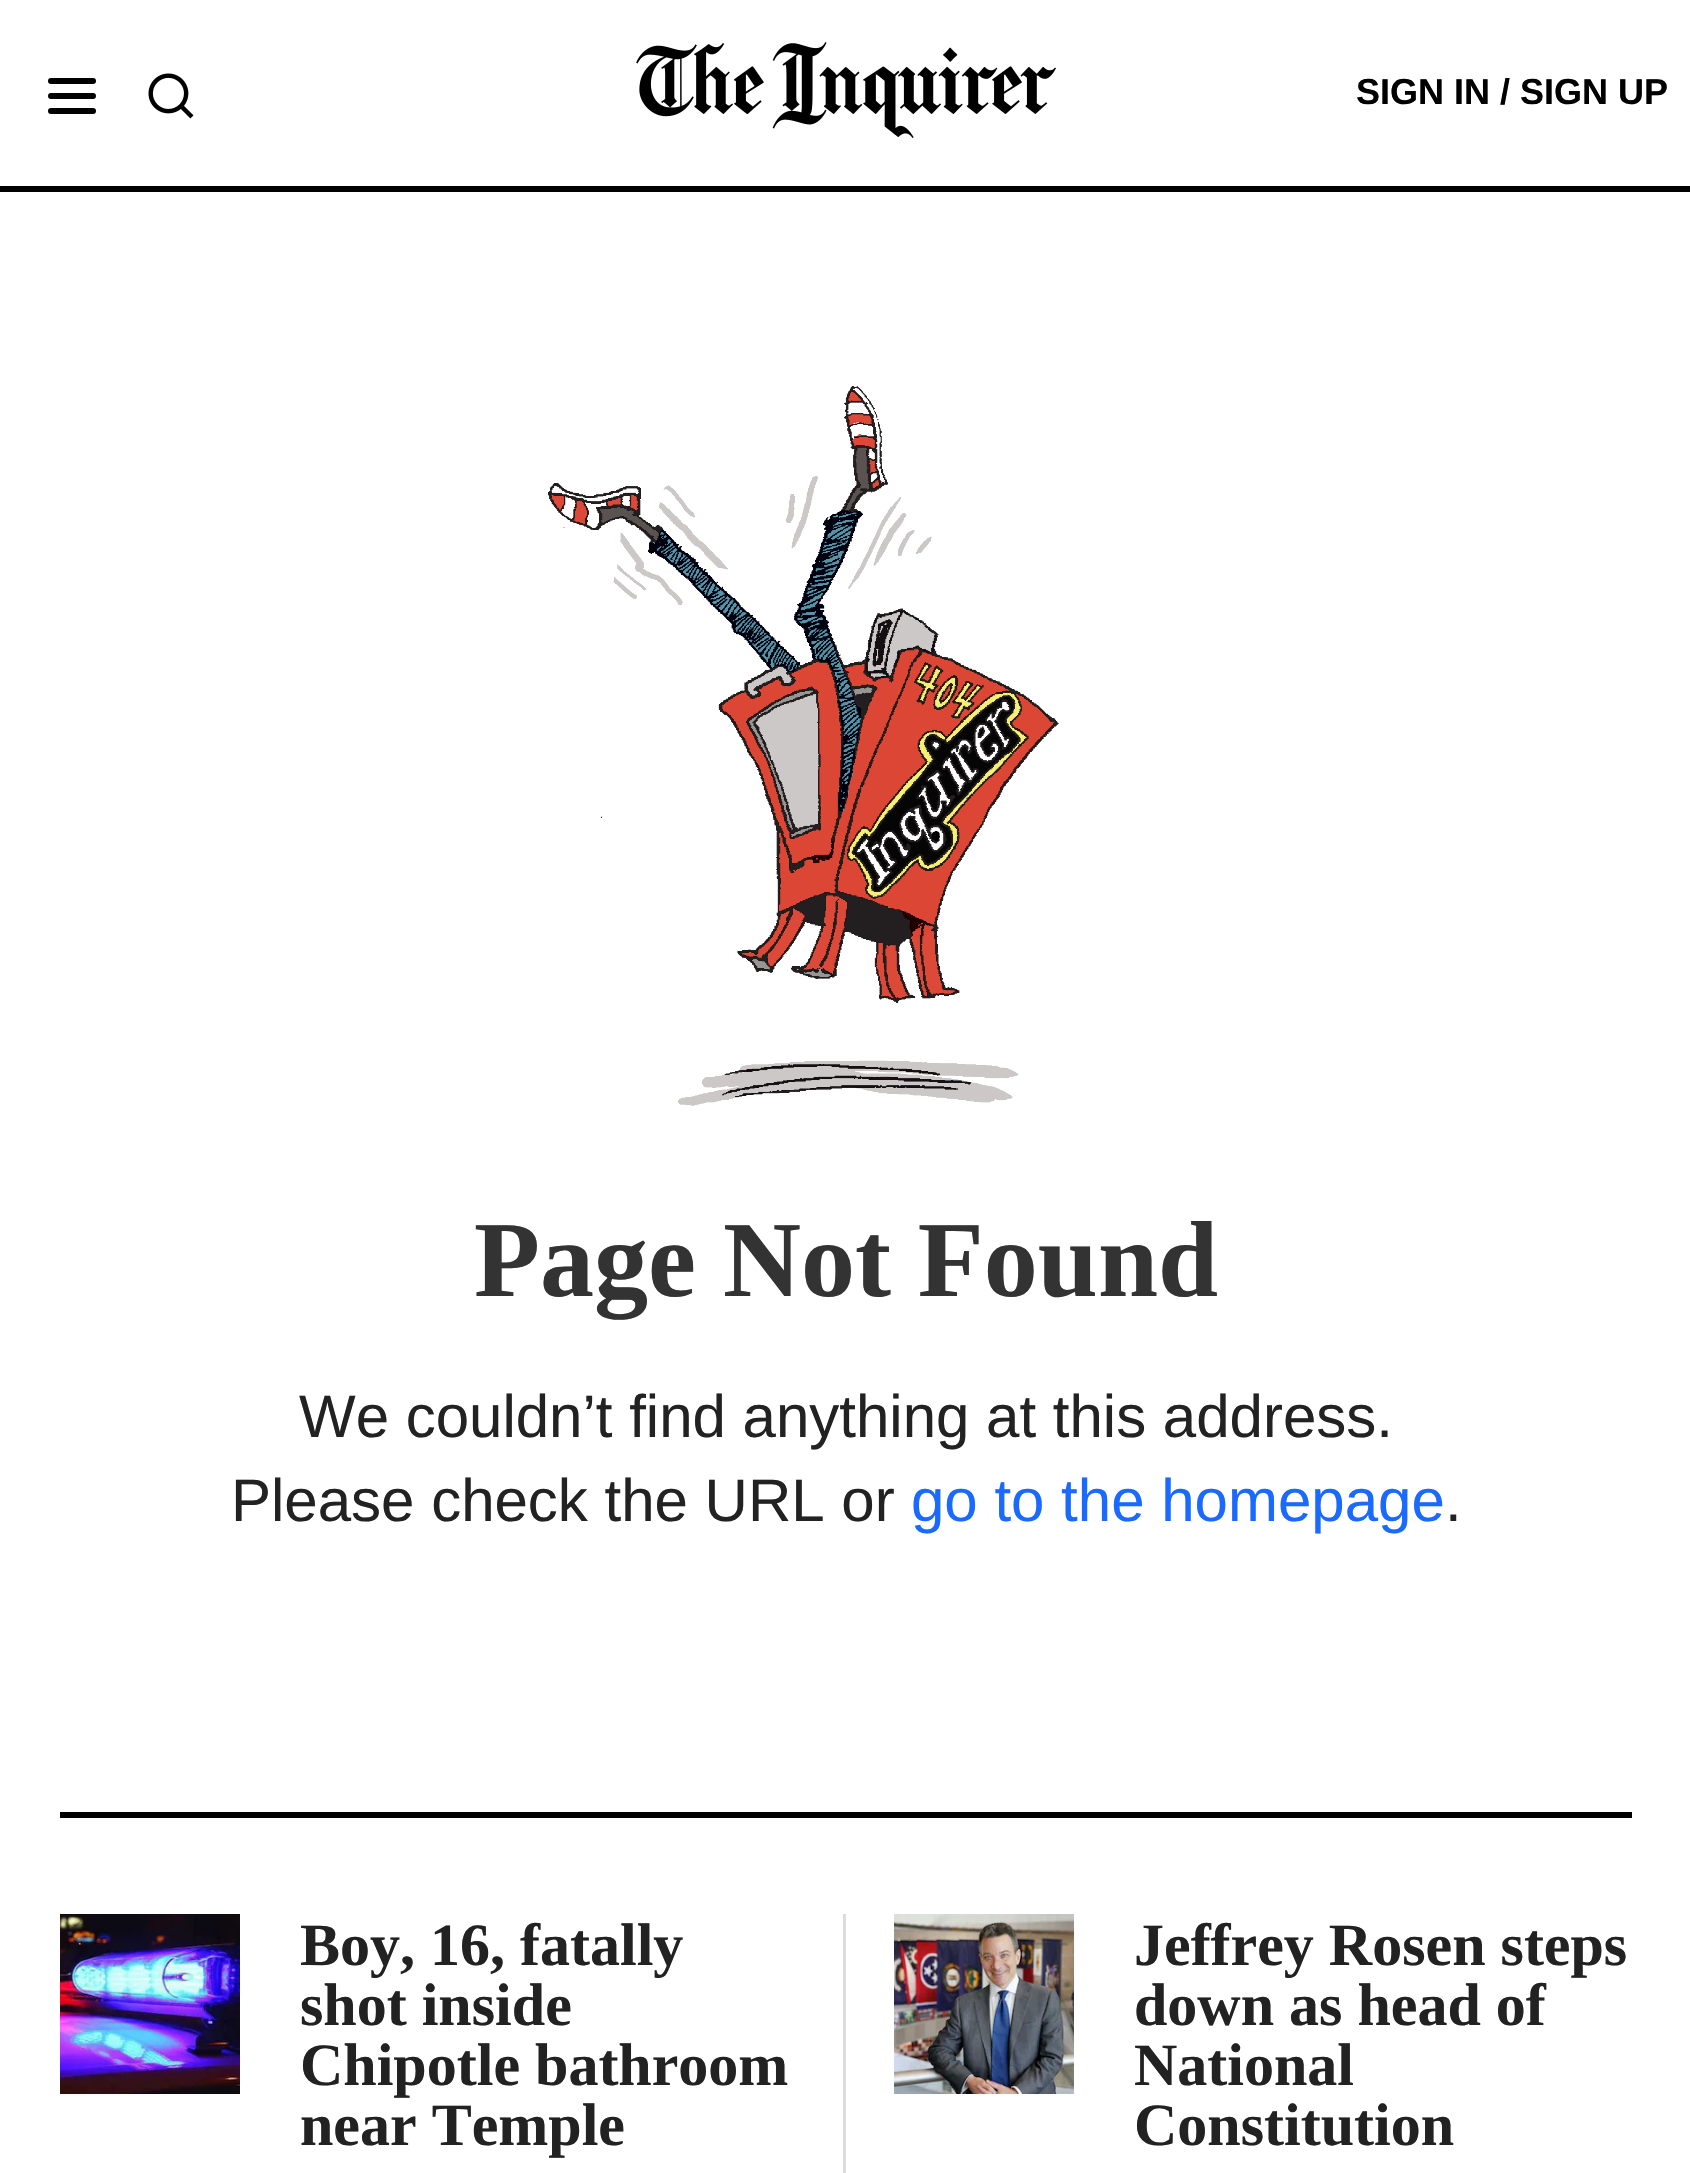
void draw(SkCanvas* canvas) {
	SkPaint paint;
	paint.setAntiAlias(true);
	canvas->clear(0xffffffff);
	paint.setColor(0xff000000);
	canvas->drawRect(SkRect::MakeXYWH(0, 186, 1690, 6), paint);
	canvas->drawRoundRect(SkRect::MakeXYWH(48, 93, 48, 6), 3, 3, paint);
	canvas->drawRoundRect(SkRect::MakeXYWH(48, 78, 48, 6), 3, 3, paint);
	canvas->drawRoundRect(SkRect::MakeXYWH(48, 108, 48, 6), 3, 3, paint);
	canvas->drawImageRect(SkImages::DeferredFromEncodedData(SkData::MakeFromFileName("img1.png")), SkRect::MakeXYWH(148, 73, 46, 46), SkSamplingOptions());
	canvas->drawImageRect(SkImages::DeferredFromEncodedData(SkData::MakeFromFileName("img2.png")), SkRect::MakeXYWH(636, 42, 420, 96), SkSamplingOptions());
	SkFont f1(fontMgr->matchFamilyStyle("Liberation Sans", SkFontStyle::Bold()), 36);
	f1.setSubpixel(true);
	canvas->drawString("SIGN IN / SIGN UP", 1356, 104, f1, paint);
	canvas->drawImageRect(SkImages::DeferredFromEncodedData(SkData::MakeFromFileName("img3.png")), SkRect::MakeXYWH(548, 386, 511, 720), SkSamplingOptions());
	SkFont f2(fontMgr->matchFamilyStyle("Liberation Serif", SkFontStyle::Bold()), 108);
	f2.setSubpixel(true);
	paint.setColor(0xff333333);
	canvas->drawString("Page Not Found", 474, 1296, f2, paint);
	SkFont f3(fontMgr->matchFamilyStyle("Liberation Sans", SkFontStyle::Normal()), 60);
	f3.setSubpixel(true);
	paint.setColor(0xff222222);
	canvas->drawString("We couldn’t find anything at this address.", 299, 1437, f3, paint);
	canvas->drawString("Please check the URL or", 231, 1521, f3, paint);
	paint.setColor(0xff1a6aff);
	canvas->drawString("go to the homepage", 911, 1521, f3, paint);
	paint.setColor(0xff222222);
	canvas->drawString(".", 1445, 1521, f3, paint);
	paint.setColor(0xff000000);
	canvas->drawRect(SkRect::MakeXYWH(60, 1812, 1572, 6), paint);
	canvas->drawImageRect(SkImages::DeferredFromEncodedData(SkData::MakeFromFileName("img4.png")), SkRect::MakeXYWH(60, 1914, 180, 180), SkSamplingOptions());
	SkFont f4(fontMgr->matchFamilyStyle("Liberation Serif", SkFontStyle::Bold()), 60);
	f4.setSubpixel(true);
	paint.setColor(0xff222222);
	canvas->drawString("Boy, 16, fatally", 300, 1965, f4, paint);
	canvas->drawString("shot inside", 300, 2025, f4, paint);
	canvas->drawString("Chipotle bathroom", 300, 2085, f4, paint);
	canvas->drawString("near Temple", 300, 2145, f4, paint);
	paint.setColor(0xffdcdcdc);
	canvas->drawRect(SkRect::MakeXYWH(843, 1914, 3, 259), paint);
	canvas->drawImageRect(SkImages::DeferredFromEncodedData(SkData::MakeFromFileName("img5.png")), SkRect::MakeXYWH(894, 1914, 180, 180), SkSamplingOptions());
	paint.setColor(0xff222222);
	canvas->drawString("Jeffrey Rosen steps", 1134, 1965, f4, paint);
	canvas->drawString("down as head of", 1134, 2025, f4, paint);
	canvas->drawString("National", 1134, 2085, f4, paint);
	canvas->drawString("Constitution", 1134, 2145, f4, paint);
}
